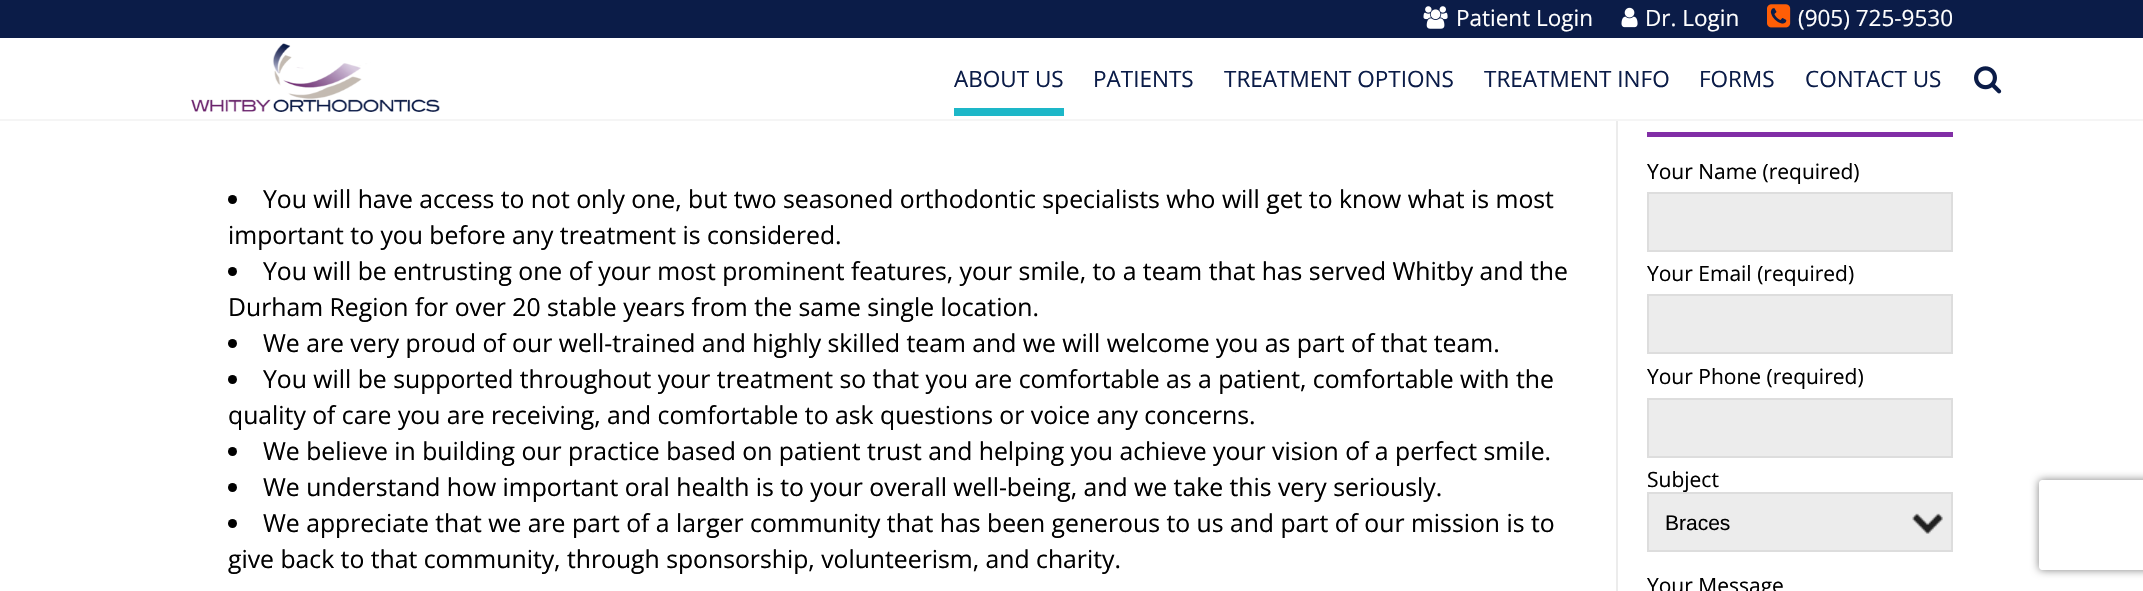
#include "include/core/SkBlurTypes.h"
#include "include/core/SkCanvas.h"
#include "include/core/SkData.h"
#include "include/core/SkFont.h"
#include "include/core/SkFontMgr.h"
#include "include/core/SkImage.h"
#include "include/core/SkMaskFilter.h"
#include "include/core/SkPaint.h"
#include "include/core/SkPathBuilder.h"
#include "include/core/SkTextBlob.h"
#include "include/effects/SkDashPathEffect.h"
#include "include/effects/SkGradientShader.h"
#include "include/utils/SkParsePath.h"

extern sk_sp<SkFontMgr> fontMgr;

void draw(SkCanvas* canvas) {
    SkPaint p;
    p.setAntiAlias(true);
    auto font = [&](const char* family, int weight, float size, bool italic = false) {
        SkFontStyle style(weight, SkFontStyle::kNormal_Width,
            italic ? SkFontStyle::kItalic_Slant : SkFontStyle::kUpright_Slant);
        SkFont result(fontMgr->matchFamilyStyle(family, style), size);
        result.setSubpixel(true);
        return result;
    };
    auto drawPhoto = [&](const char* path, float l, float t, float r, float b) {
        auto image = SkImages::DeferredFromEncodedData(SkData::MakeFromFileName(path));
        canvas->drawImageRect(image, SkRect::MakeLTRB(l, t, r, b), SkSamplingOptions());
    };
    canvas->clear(0xFFFFFFFF);
    p.setColor(0xFFF5F5F5);
    canvas->drawRect(SkRect::MakeLTRB(0, 119, 2143, 121), p);
    p.setColor(0xFF0B1C48);
    canvas->drawRect(SkRect::MakeLTRB(0, 0, 2143, 38), p);
    drawPhoto("media/1.png", 1423, 6, 1448, 29);
    auto font1 = font("Open Sans", 400, 22.5f);
    p.setColor(0xFFFFFFFF);
    canvas->drawString("Patient Login", 1456, 26, font1, p);
    drawPhoto("media/2.png", 1621, 7, 1638, 28);
    canvas->drawString("Dr. Login", 1645, 26, font1, p);
    drawPhoto("media/3.png", 1767, 4, 1791, 28);
    canvas->drawString("(905) 725-9530", 1798, 26, font1, p);
    drawPhoto("media/4.png", 191, 43, 440, 112);
    p.setColor(0xFF0B1C48);
    canvas->drawString("ABOUT US", 954, 87, font1, p);
    p.setColor(0xFF1DB7C8);
    canvas->drawRect(SkRect::MakeLTRB(954, 108, 1064, 116), p);
    p.setColor(0xFF0B1C48);
    {
        const struct { const char* s; float x, y; } items[] = {
            {"PATIENTS", 1093, 87},
            {"TREATMENT OPTIONS", 1224, 87},
            {"TREATMENT INFO", 1484, 87},
            {"FORMS", 1699, 87},
            {"CONTACT US", 1805, 87},
        };
        for (auto [s, x, y] : items) {
            canvas->drawString(s, x, y, font1, p);
        }
    }
    drawPhoto("media/5.png", 1974, 66, 2002, 94);
    p.setColor(0xFF000000);
    canvas->drawCircle(232.5f, 199.5f, 4.5f, p);
    auto font2 = font("Open Sans", 400, 24.75f);
    canvas->drawString("You will have access to not only one, but two seasoned orthodontic specialists who will get to know what is most", 263, 208, font2, p);
    canvas->drawString("important to you before any treatment is considered.", 228, 244, font2, p);
    canvas->drawCircle(232.5f, 271.5f, 4.5f, p);
    canvas->drawString("You will be entrusting one of your most prominent features, your smile, to a team that has served Whitby and the", 263, 280, font2, p);
    canvas->drawString("Durham Region for over 20 stable years from the same single location.", 228, 316, font2, p);
    canvas->drawCircle(232.5f, 343.5f, 4.5f, p);
    canvas->drawString("We are very proud of our well-trained and highly skilled team and we will welcome you as part of that team.", 263, 352, font2, p);
    canvas->drawCircle(232.5f, 379.5f, 4.5f, p);
    canvas->drawString("You will be supported throughout your treatment so that you are comfortable as a patient, comfortable with the", 263, 388, font2, p);
    canvas->drawString("quality of care you are receiving, and comfortable to ask questions or voice any concerns.", 228, 424, font2, p);
    canvas->drawCircle(232.5f, 451.5f, 4.5f, p);
    canvas->drawString("We believe in building our practice based on patient trust and helping you achieve your vision of a perfect smile.", 263, 460, font2, p);
    canvas->drawCircle(232.5f, 487.5f, 4.5f, p);
    canvas->drawString("We understand how important oral health is to your overall well-being, and we take this very seriously.", 263, 496, font2, p);
    canvas->drawCircle(232.5f, 523.5f, 4.5f, p);
    canvas->drawString("We appreciate that we are part of a larger community that has been generous to us and part of our mission is to", 263, 532, font2, p);
    canvas->drawString("give back to that community, through sponsorship, volunteerism, and charity.", 228, 568, font2, p);
    p.setColor(0xFFECECEC);
    canvas->drawRect(SkRect::MakeLTRB(1616, 121, 1618, 591), p);
    p.setColor(0xFF812EA6);
    canvas->drawRect(SkRect::MakeLTRB(1647, 132, 1953, 137), p);
    auto font3 = font("Open Sans", 400, 21);
    p.setColor(0xFF000000);
    canvas->drawString("Your Name (required)", 1647, 179, font3, p);
    p.setColor(0xFFECECEC);
    canvas->drawRect(SkRect::MakeLTRB(1648, 193, 1952, 251), p);
    p.setStyle(SkPaint::kStroke_Style);
    p.setStrokeWidth(2);
    p.setColor(0xFFDDDDDD);
    canvas->drawRect(SkRect::MakeLTRB(1648, 193, 1952, 251), p);
    p.setStyle(SkPaint::kFill_Style);
    p.setColor(0xFF000000);
    canvas->drawString("Your Email (required)", 1647, 281, font3, p);
    p.setColor(0xFFECECEC);
    canvas->drawRect(SkRect::MakeLTRB(1648, 295, 1952, 353), p);
    p.setStyle(SkPaint::kStroke_Style);
    p.setColor(0xFFDDDDDD);
    canvas->drawRect(SkRect::MakeLTRB(1648, 295, 1952, 353), p);
    p.setStyle(SkPaint::kFill_Style);
    p.setColor(0xFF000000);
    canvas->drawString("Your Phone (required)", 1647, 384, font3, p);
    p.setColor(0xFFECECEC);
    canvas->drawRect(SkRect::MakeLTRB(1648, 399, 1952, 457), p);
    p.setStyle(SkPaint::kStroke_Style);
    p.setColor(0xFFDDDDDD);
    canvas->drawRect(SkRect::MakeLTRB(1648, 399, 1952, 457), p);
    p.setStyle(SkPaint::kFill_Style);
    p.setColor(0xFF000000);
    canvas->drawString("Subject", 1647, 487, font3, p);
    p.setColor(0xFFECECEC);
    canvas->drawRect(SkRect::MakeLTRB(1649, 494, 1951, 550), p);
    drawPhoto("media/6.png", 1912, 513, 1943, 534);
    p.setStyle(SkPaint::kStroke_Style);
    p.setColor(0xFFDDDDDD);
    canvas->drawRect(SkRect::MakeLTRB(1648, 493, 1952, 551), p);
    auto font4 = font("Liberation Sans", 400, 21);
    p.setStyle(SkPaint::kFill_Style);
    p.setColor(0xFF000000);
    canvas->drawString("Braces", 1665, 530, font4, p);
    canvas->drawString("Your Message", 1647, 593, font3, p);
    canvas->save();
    canvas->clipPath(SkPathBuilder(SkPathFillType::kEvenOdd).moveTo(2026, 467).lineTo(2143, 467).lineTo(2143, 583).lineTo(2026, 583).close().moveTo(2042, 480).lineTo(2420, 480).cubicTo(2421.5f, 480, 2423, 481.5f, 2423, 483).lineTo(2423, 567).cubicTo(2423, 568.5f, 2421.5f, 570, 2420, 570).lineTo(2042, 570).cubicTo(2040.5f, 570, 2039, 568.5f, 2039, 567).lineTo(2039, 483).cubicTo(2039, 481.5f, 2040.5f, 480, 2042, 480).close().detach(), true);
    p.setColor(0xFF808080);
    p.setMaskFilter(SkMaskFilter::MakeBlur(kNormal_SkBlurStyle, 4));
    canvas->drawRoundRect(SkRect::MakeLTRB(2039, 480, 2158, 570), 3, 3, p);
    p.setMaskFilter(nullptr);
    canvas->restore();
}
